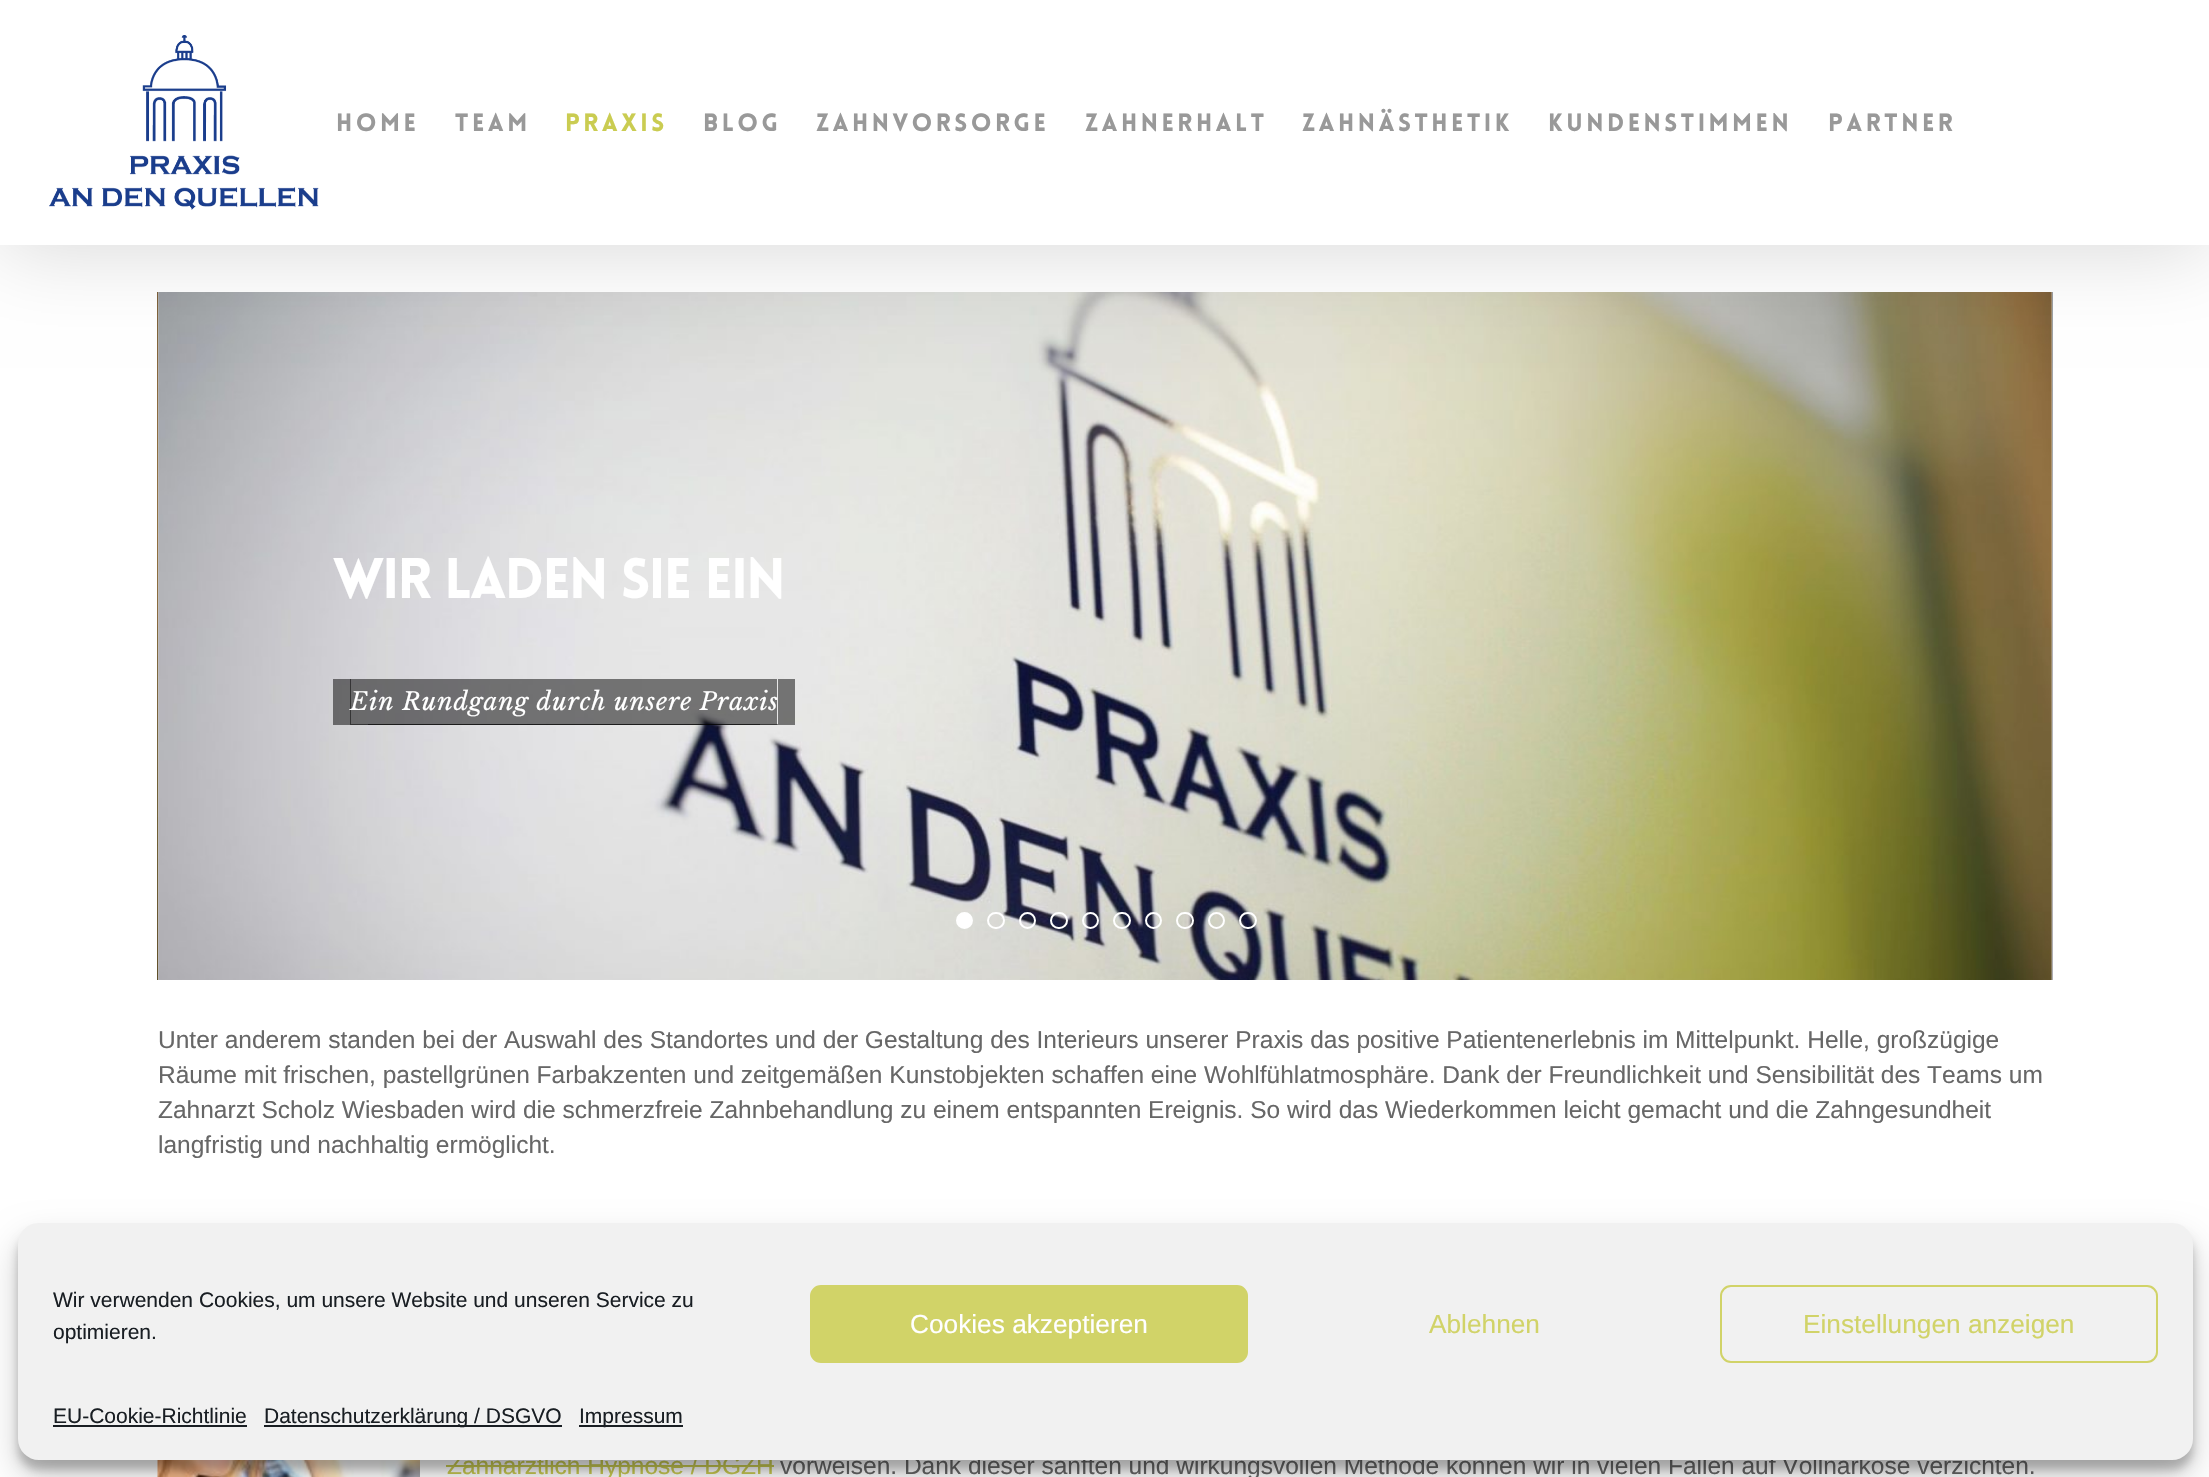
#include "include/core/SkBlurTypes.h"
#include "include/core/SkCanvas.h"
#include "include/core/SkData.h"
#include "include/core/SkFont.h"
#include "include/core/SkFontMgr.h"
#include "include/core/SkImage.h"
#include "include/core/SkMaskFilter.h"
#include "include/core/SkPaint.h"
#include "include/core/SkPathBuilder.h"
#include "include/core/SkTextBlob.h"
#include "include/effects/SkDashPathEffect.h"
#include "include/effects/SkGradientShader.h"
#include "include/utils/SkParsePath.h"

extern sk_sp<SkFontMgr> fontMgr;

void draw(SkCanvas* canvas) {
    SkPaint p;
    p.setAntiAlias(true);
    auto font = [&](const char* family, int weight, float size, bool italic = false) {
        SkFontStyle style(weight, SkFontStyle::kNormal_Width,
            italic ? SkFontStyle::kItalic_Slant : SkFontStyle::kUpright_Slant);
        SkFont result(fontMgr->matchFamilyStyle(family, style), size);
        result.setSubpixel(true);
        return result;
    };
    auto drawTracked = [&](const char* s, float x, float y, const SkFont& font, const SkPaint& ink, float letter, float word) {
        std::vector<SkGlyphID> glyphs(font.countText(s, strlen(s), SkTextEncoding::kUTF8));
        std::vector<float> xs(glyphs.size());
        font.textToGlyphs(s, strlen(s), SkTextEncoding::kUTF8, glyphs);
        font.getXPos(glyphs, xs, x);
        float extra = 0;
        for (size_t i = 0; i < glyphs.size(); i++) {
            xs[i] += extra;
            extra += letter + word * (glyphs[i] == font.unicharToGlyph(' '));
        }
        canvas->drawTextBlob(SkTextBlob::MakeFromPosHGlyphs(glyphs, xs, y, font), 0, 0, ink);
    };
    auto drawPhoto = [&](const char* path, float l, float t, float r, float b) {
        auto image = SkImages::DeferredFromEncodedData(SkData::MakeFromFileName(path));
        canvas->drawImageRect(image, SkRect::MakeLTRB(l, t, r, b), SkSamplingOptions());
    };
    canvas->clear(0xFFFFFFFF);
    drawPhoto("media/2.png", 157, 292, 159, 980);
    drawPhoto("media/3.png", 158, 292, 2052, 980);
    drawPhoto("media/4.png", 2052, 292, 2053, 980);
    p.setColor(0x26000000);
    p.setMaskFilter(SkMaskFilter::MakeBlur(kNormal_SkBlurStyle, 39.5f));
    canvas->drawRect(SkRect::MakeLTRB(0, 5, 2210, 250), p);
    p.setMaskFilter(nullptr);
    p.setColor(0xFFFFFFFF);
    canvas->drawRect(SkRect::MakeLTRB(0, 0, 2209, 245), p);
    drawPhoto("media/1.png", 49, 35, 319, 210);
    auto font1 = font("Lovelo", 900, 24.5f);
    p.setColor(0xFF999999);
    drawTracked("Home", 336, 131, font1, p, 3.5f, 0);
    drawTracked("Team", 455, 131, font1, p, 3.5f, 0);
    p.setColor(0xFFCACC51);
    drawTracked("Praxis", 565, 131, font1, p, 3.5f, 0);
    p.setColor(0xFF999999);
    {
        const struct { const char* s; float x, y; } items[] = {
            {"Blog", 703, 131},
            {"Zahnvorsorge", 816, 131},
            {"Zahnerhalt", 1085, 131},
            {"Zahnästhetik", 1302, 131},
            {"Kundenstimmen", 1548, 131},
            {"Partner", 1828, 131},
        };
        for (auto [s, x, y] : items) {
            drawTracked(s, x, y, font1, p, 3.5f, 0);
        }
    }
    auto font2 = font("Lovelo", 900, 56);
    p.setColor(0xFFFFFFFF);
    drawTracked("Wir laden Sie ein", 333, 598, font2, p, -1.75f, 0);
    p.setColor(0x80000000);
    canvas->drawPath(SkPathBuilder().moveTo(333, 679).lineTo(333, 725).lineTo(760, 725).lineTo(760, 724).lineTo(351, 724).lineTo(351, 679).close().detach(), p);
    canvas->drawPath(SkPathBuilder().moveTo(368, 724).lineTo(368, 725).lineTo(795, 725).lineTo(795, 679).lineTo(778, 679).lineTo(778, 724).close().detach(), p);
    canvas->drawRect(SkRect::MakeLTRB(350, 679, 777, 725), p);
    auto font3 = font("Libre Baskerville", 400, 24.5f, true);
    p.setColor(0xFFFFFFFF);
    drawTracked("Ein Rundgang durch unsere Praxis", 350, 710, font3, p, 0.9f, 0);
    canvas->drawCircle(964.5f, 920.5f, 7.5f, p);
    p.setStyle(SkPaint::kStroke_Style);
    p.setStrokeWidth(2);
    canvas->drawCircle(964.5f, 920.5f, 7.5f, p);
    canvas->drawRoundRect(SkRect::MakeLTRB(988, 913, 1004, 928), 7.5f, 7.5f, p);
    canvas->drawCircle(1027.5f, 920.5f, 7.5f, p);
    canvas->drawRoundRect(SkRect::MakeLTRB(1051, 913, 1067, 928), 7.5f, 7.5f, p);
    canvas->drawCircle(1090.5f, 920.5f, 7.5f, p);
    canvas->drawRoundRect(SkRect::MakeLTRB(1114, 913, 1130, 928), 7.5f, 7.5f, p);
    canvas->drawCircle(1153.5f, 920.5f, 7.5f, p);
    canvas->drawRoundRect(SkRect::MakeLTRB(1177, 913, 1193, 928), 7.5f, 7.5f, p);
    canvas->drawCircle(1216.5f, 920.5f, 7.5f, p);
    canvas->drawRoundRect(SkRect::MakeLTRB(1240, 913, 1256, 928), 7.5f, 7.5f, p);
    auto font4 = font("Liberation Sans", 400, 24.5f);
    p.setStyle(SkPaint::kFill_Style);
    p.setColor(0xFF676767);
    {
        const struct { const char* s; float x, y; } items[] = {
            {"Unter anderem standen bei der Auswahl des Standortes und der Gestaltung des Interieurs unserer Praxis das positive Patientenerlebnis im Mittelpunkt. Helle, großzügige", 158, 1048},
            {"Räume mit frischen, pastellgrünen Farbakzenten und zeitgemäßen Kunstobjekten schaffen eine Wohlfühlatmosphäre. Dank der Freundlichkeit und Sensibilität des Teams um", 158, 1083},
            {"Zahnarzt Scholz Wiesbaden wird die schmerzfreie Zahnbehandlung zu einem entspannten Ereignis. So wird das Wiederkommen leicht gemacht und die Zahngesundheit", 158, 1118},
            {"langfristig und nachhaltig ermöglicht.", 158, 1153},
        };
        for (auto [s, x, y] : items) {
            canvas->drawString(s, x, y, font4, p);
        }
    }
    drawPhoto("media/5.png", 157, 1460, 420, 1477);
    p.setColor(0xFFCACC51);
    canvas->drawString("Zahnärztlich Hypnose / DGZH", 447, 1474, font4, p);
    canvas->drawRect(SkRect::MakeLTRB(446, 1465, 774, 1467), p);
    p.setColor(0xFF676767);
    canvas->drawString("vorweisen. Dank dieser sanften und wirkungsvollen Methode können wir in vielen Fällen auf Vollnarkose verzichten.", 780, 1474, font4, p);
    p.setColor(0x3B000000);
    p.setMaskFilter(SkMaskFilter::MakeBlur(kNormal_SkBlurStyle, 5));
    canvas->drawRoundRect(SkRect::MakeLTRB(18, 1234, 2193, 1470), 21, 21, p);
    p.setMaskFilter(nullptr);
    p.setColor(0x30000000);
    p.setMaskFilter(SkMaskFilter::MakeBlur(kNormal_SkBlurStyle, 17.5f));
    canvas->drawRoundRect(SkRect::MakeLTRB(18, 1241, 2193, 1477), 21, 21, p);
    p.setMaskFilter(nullptr);
    p.setColor(0xFFF1F1F1);
    canvas->drawRoundRect(SkRect::MakeLTRB(18, 1223, 2193, 1460), 21, 21, p);
    auto font5 = font("Liberation Sans", 400, 21);
    p.setColor(0xFF191E23);
    canvas->drawString("Wir verwenden Cookies, um unsere Website und unseren Service zu", 53, 1307, font5, p);
    canvas->drawString("optimieren.", 53, 1339, font5, p);
    p.setColor(0xFFD1D368);
    canvas->drawRoundRect(SkRect::MakeLTRB(811, 1286, 1247, 1362), 10, 10, p);
    p.setStyle(SkPaint::kStroke_Style);
    canvas->drawRoundRect(SkRect::MakeLTRB(811, 1286, 1247, 1362), 10, 10, p);
    auto font6 = font("Liberation Sans", 400, 26.25f);
    p.setStyle(SkPaint::kFill_Style);
    p.setColor(0xFFFFFFFF);
    canvas->drawString("Cookies akzeptieren", 910, 1333, font6, p);
    p.setColor(0xFFD1D368);
    canvas->drawString("Ablehnen", 1429, 1333, font6, p);
    p.setStyle(SkPaint::kStroke_Style);
    canvas->drawRoundRect(SkRect::MakeLTRB(1721, 1286, 2157, 1362), 10, 10, p);
    p.setStyle(SkPaint::kFill_Style);
    canvas->drawString("Einstellungen anzeigen", 1803, 1333, font6, p);
    p.setColor(0xFF191E23);
    canvas->drawString("EU-Cookie-Richtlinie", 53, 1423, font5, p);
    canvas->drawRect(SkRect::MakeLTRB(53, 1425, 247, 1427), p);
    canvas->drawRect(SkRect::MakeLTRB(264, 1425, 562, 1427), p);
    canvas->drawString("Datenschutzerklärung / DSGVO", 264, 1423, font5, p);
    canvas->drawRect(SkRect::MakeLTRB(579, 1425, 683, 1427), p);
    canvas->drawString("Impressum", 579, 1423, font5, p);
}
